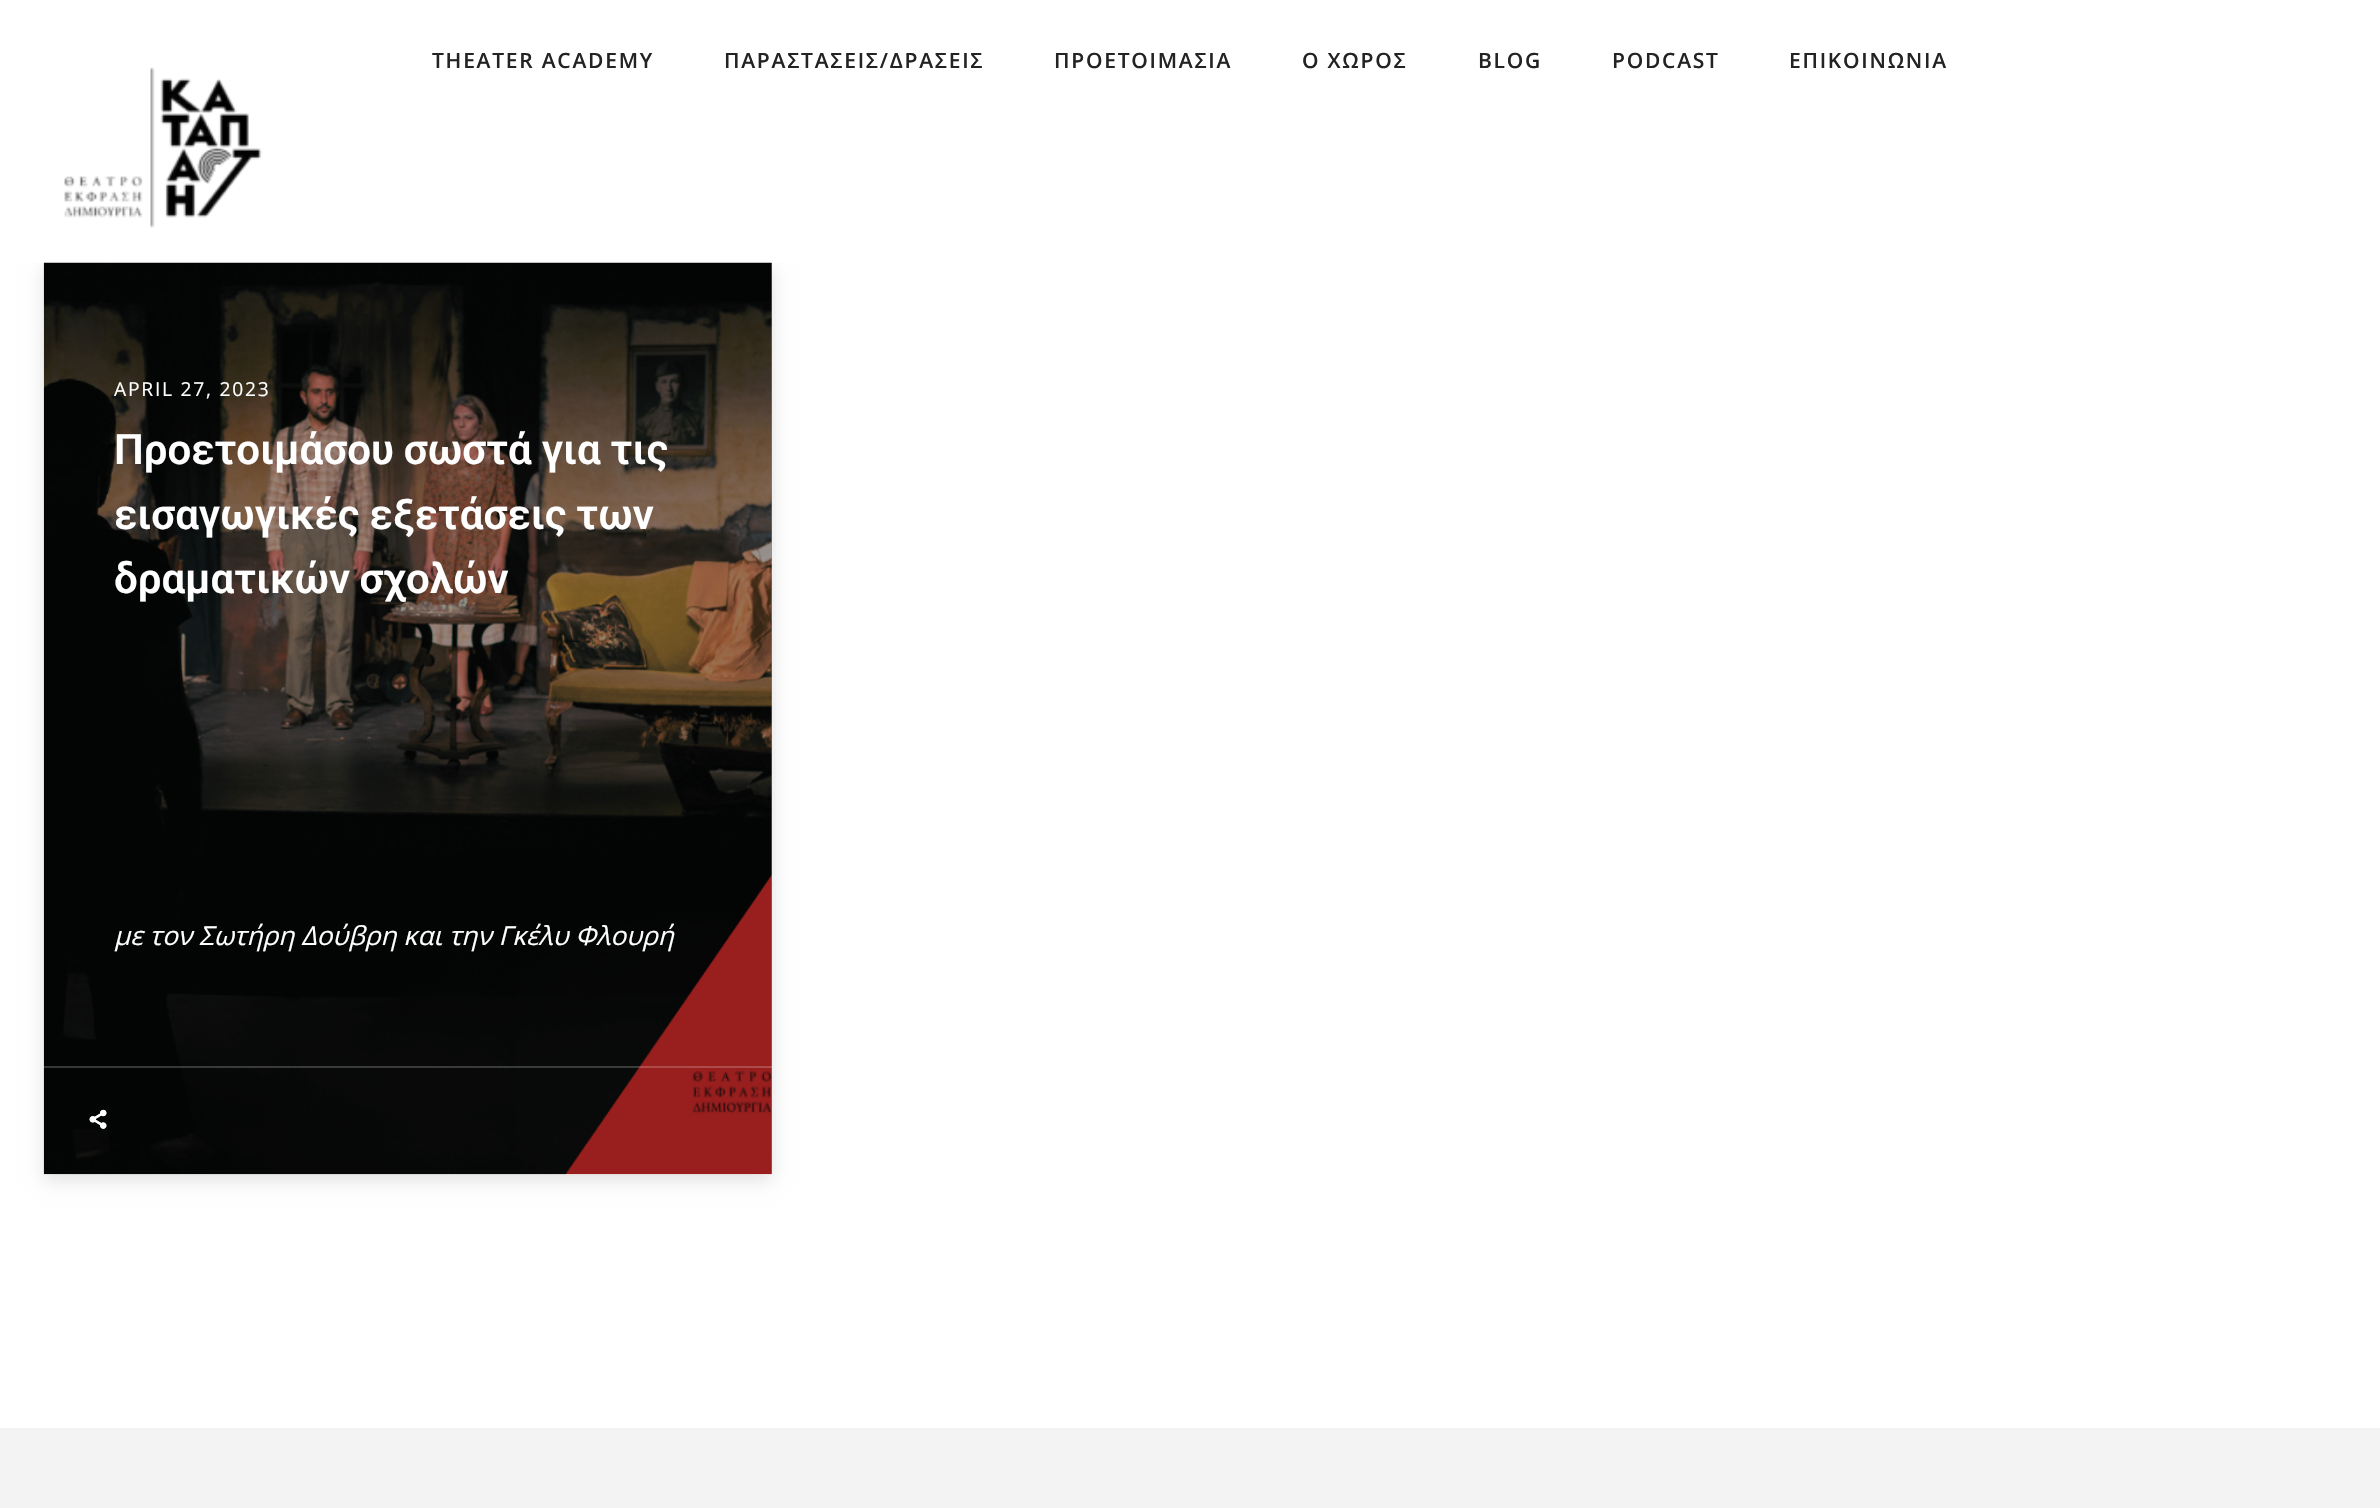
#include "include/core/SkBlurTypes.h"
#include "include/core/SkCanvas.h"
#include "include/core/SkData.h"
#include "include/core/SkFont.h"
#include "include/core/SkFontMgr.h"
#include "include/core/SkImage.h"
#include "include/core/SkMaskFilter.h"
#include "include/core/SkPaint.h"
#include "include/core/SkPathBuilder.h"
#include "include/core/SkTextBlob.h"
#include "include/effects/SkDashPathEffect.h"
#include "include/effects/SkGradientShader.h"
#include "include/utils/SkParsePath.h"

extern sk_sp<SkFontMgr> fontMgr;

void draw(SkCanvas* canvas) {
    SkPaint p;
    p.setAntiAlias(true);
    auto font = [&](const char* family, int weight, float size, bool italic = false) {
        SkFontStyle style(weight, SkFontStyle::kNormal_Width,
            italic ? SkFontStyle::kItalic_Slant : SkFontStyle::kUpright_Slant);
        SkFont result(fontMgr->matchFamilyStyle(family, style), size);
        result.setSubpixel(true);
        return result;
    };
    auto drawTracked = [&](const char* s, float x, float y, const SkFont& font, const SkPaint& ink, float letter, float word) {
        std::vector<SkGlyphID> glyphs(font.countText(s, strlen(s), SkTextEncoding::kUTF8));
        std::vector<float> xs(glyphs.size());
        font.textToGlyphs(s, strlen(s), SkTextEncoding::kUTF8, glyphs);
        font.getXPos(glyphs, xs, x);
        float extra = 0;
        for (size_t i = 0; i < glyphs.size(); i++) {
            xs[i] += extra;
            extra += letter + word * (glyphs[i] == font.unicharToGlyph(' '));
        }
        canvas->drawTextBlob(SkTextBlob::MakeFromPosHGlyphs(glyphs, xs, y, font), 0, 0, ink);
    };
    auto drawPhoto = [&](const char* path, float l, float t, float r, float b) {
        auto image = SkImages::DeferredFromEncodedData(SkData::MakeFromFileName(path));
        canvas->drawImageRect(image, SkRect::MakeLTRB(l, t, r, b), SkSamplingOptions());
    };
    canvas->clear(0xFFFFFFFF);
    auto font1 = font("Open Sans", 600, 21);
    p.setColor(0xFF232323);
    {
        const struct { const char* s; float x, y; } items[] = {
            {"THEATER ACADEMY", 432, 68},
            {"ΠΑΡΑΣΤΑΣΕΙΣ/ΔΡΑΣΕΙΣ", 724, 68},
            {"ΠΡΟΕΤΟΙΜΑΣΙΑ", 1054, 68},
            {"Ο ΧΩΡΟΣ", 1302, 68},
            {"BLOG", 1478, 68},
            {"PODCAST", 1612, 68},
            {"ΕΠΙΚΟΙΝΩΝΙΑ", 1789, 68},
        };
        for (auto [s, x, y] : items) {
            drawTracked(s, x, y, font1, p, 1.75f, 0);
        }
    }
    drawPhoto("media/1.png", 64, 67, 262, 228);
    canvas->save();
    canvas->clipRect(SkRect::MakeLTRB(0, 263, 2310, 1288));
    p.setColor(0x1F000000);
    p.setMaskFilter(SkMaskFilter::MakeBlur(kNormal_SkBlurStyle, 9));
    canvas->drawRect(SkRect::MakeLTRB(44, 268, 772, 1180), p);
    p.setMaskFilter(nullptr);
    canvas->restore();
    drawPhoto("media/2.png", 43, 262, 772, 1175);
    p.setColor(0x66000000);
    canvas->drawRect(SkRect::MakeLTRB(44, 263, 772, 1174), p);
    auto font2 = font("Open Sans", 400, 19.25f);
    p.setColor(0xFFFFFFFF);
    drawTracked("APRIL 27, 2023", 114, 396, font2, p, 1.75f, 0);
    auto font3 = font("Roboto", 600, 42);
    drawTracked("Προετοιμάσου σωστά για τις", 114, 464, font3, p, 0, -0.5f);
    drawTracked("εισαγωγικές εξετάσεις των", 114, 529, font3, p, 0, -0.5f);
    drawTracked("δραματικών σχολών", 114, 593, font3, p, 0, -1);
    auto font4 = font("Open Sans", 400, 26.25f, true);
    canvas->drawString("με τον Σωτήρη Δούβρη και την Γκέλυ Φλουρή", 114, 945, font4, p);
    p.setColor(0x33FFFFFF);
    canvas->drawRect(SkRect::MakeLTRB(44, 1066, 772, 1068), p);
    drawPhoto("media/3.png", 89, 1109, 107, 1129);
    drawPhoto("media/4.png", 89, 1109, 107, 1129);
    p.setColor(0xFFF3F3F3);
    canvas->drawRect(SkRect::MakeLTRB(0, 1428, 2380, 1508), p);
}
